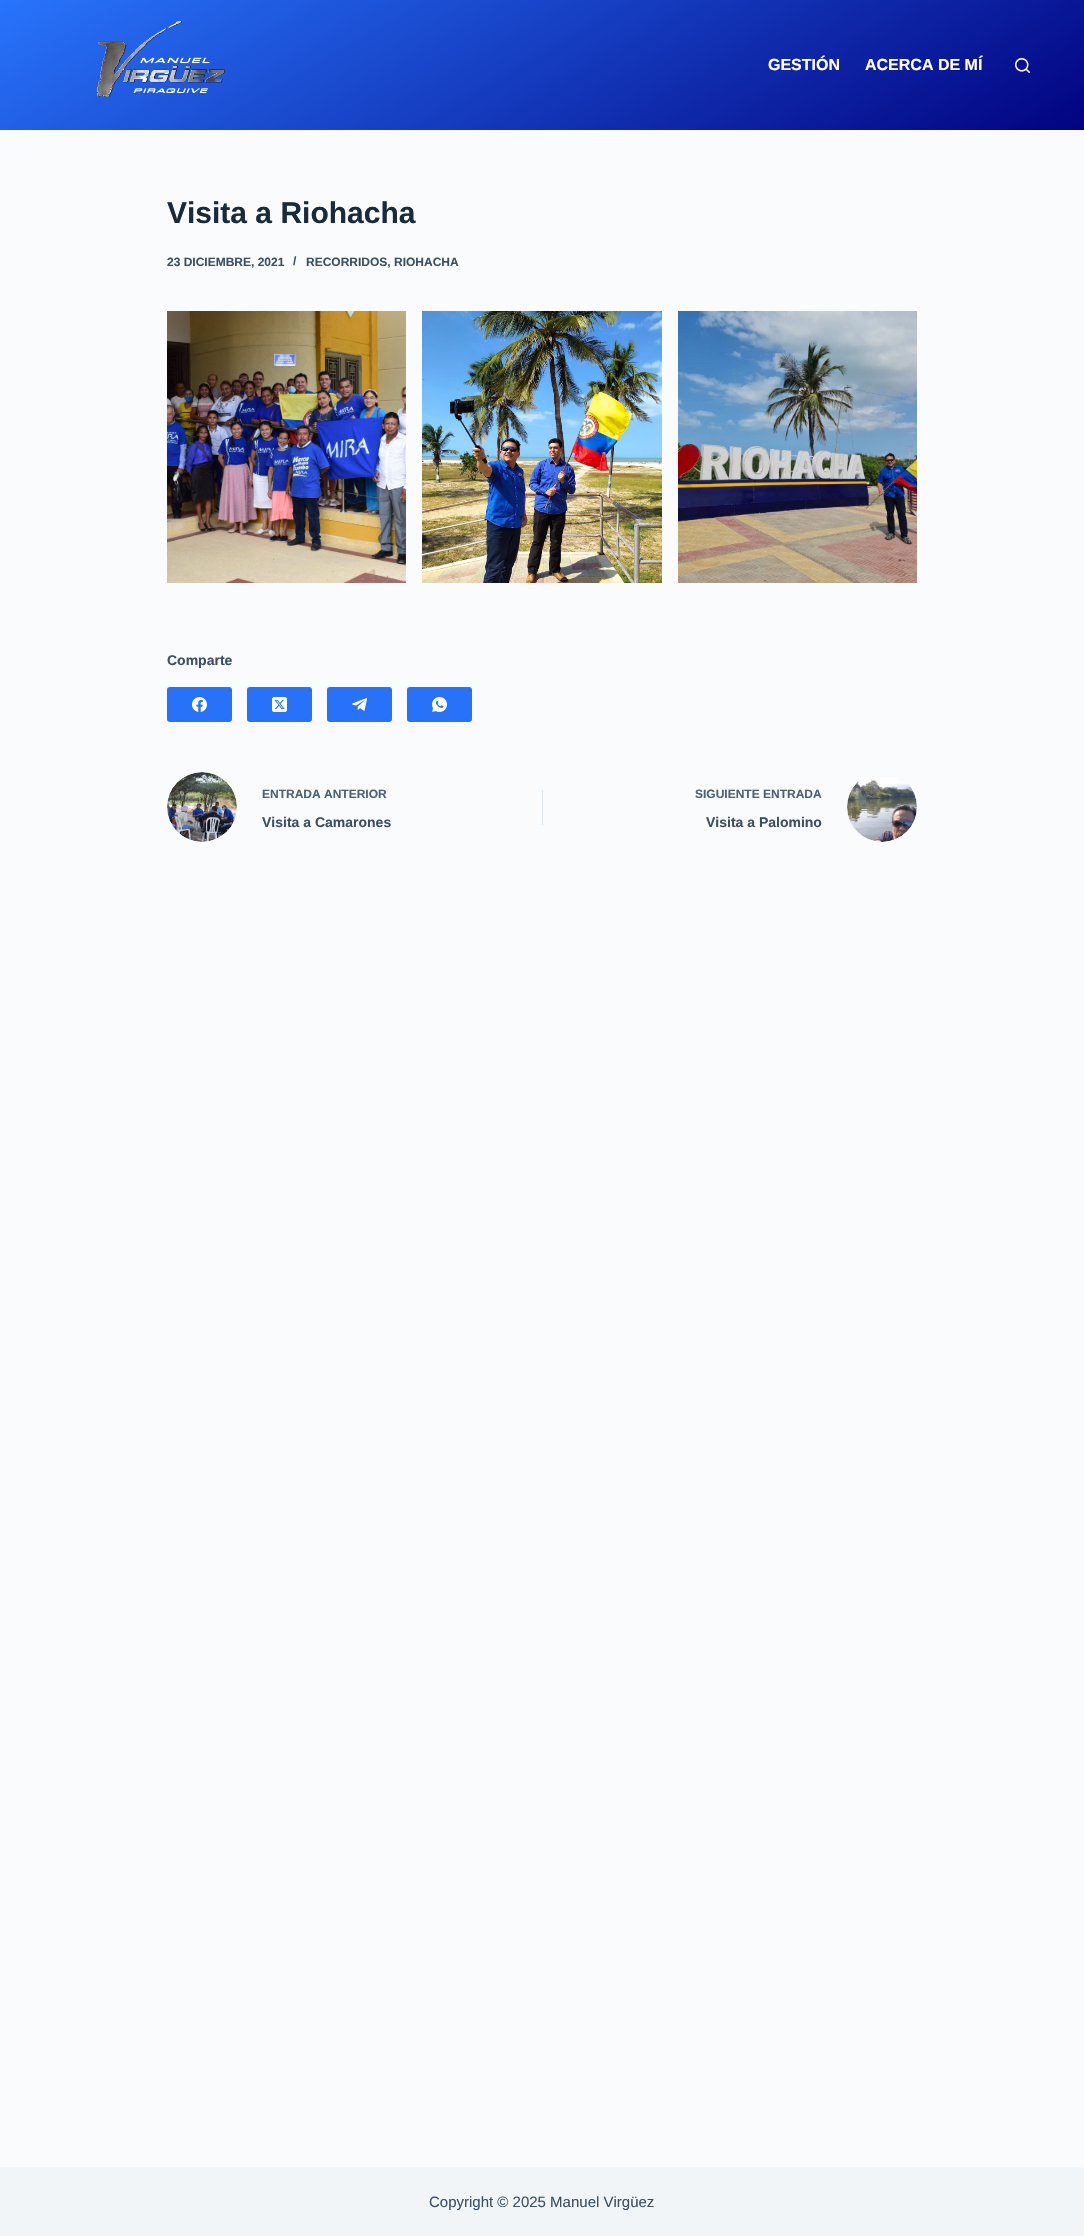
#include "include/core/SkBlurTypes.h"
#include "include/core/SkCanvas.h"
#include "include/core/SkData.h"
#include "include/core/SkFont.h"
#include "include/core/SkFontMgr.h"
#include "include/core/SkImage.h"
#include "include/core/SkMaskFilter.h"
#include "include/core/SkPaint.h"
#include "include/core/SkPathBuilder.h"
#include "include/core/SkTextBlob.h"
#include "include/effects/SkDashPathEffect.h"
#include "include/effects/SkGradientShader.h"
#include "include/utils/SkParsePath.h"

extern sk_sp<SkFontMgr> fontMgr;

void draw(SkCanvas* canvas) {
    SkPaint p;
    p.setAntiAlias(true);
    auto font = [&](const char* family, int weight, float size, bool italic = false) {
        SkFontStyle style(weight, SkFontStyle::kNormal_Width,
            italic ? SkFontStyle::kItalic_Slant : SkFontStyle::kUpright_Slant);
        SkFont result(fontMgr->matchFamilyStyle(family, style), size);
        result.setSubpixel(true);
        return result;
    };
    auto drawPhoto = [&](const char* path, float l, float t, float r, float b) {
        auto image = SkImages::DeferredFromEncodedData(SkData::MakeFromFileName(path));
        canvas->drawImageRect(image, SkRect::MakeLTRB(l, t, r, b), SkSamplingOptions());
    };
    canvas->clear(0xFFFAFBFC);
    {
        const SkColor colors[] = {0xFF020381, 0xFF2874FC};
        const float stops[] = {0, 1};
        const SkPoint ends[] = {{706, 348}, {378, -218}};
        p.setShader(SkGradientShader::MakeLinear(ends, colors, stops, 2, SkTileMode::kClamp));
        p.setAlpha(255);
    }
    canvas->drawRect(SkRect::MakeLTRB(0, 0, 1084, 130), p);
    drawPhoto("media/1.png", 96, 21, 226, 97);
    auto font1 = font("Liberation Sans", 700, 16);
    p.setShader(nullptr);
    p.setColor(0xFFFFFEFE);
    canvas->drawString("GESTIÓN", 768, 70, font1, p);
    canvas->drawString("ACERCA DE MÍ", 865, 70, font1, p);
    drawPhoto("media/2.png", 1015, 58, 1030, 73);
    auto font2 = font("Liberation Sans", 700, 30);
    p.setColor(0xFF192A3D);
    canvas->drawString("Visita a Riohacha", 167, 223, font2, p);
    auto font3 = font("Liberation Sans", 700, 12);
    p.setColor(0xFF3A4F66);
    {
        const struct { const char* s; float x, y; } items[] = {
            {"23 DICIEMBRE, 2021", 167, 266},
            {"/", 293, 265},
            {"RECORRIDOS, RIOHACHA", 306, 266},
        };
        for (auto [s, x, y] : items) {
            canvas->drawString(s, x, y, font3, p);
        }
    }
    drawPhoto("media/3.png", 167, 311, 406, 583);
    drawPhoto("media/4.png", 422, 311, 662, 583);
    drawPhoto("media/5.png", 678, 311, 917, 583);
    auto font4 = font("Liberation Sans", 700, 14);
    canvas->drawString("Comparte", 167, 665, font4, p);
    p.setColor(0xFF2872FA);
    canvas->drawRoundRect(SkRect::MakeLTRB(167, 687, 232, 722), 3, 3, p);
    drawPhoto("media/6.png", 192, 697, 207, 712);
    canvas->drawRoundRect(SkRect::MakeLTRB(247, 687, 312, 722), 3, 3, p);
    drawPhoto("media/7.png", 272, 697, 287, 712);
    canvas->drawRoundRect(SkRect::MakeLTRB(327, 687, 392, 722), 3, 3, p);
    drawPhoto("media/8.png", 352, 698, 367, 711);
    canvas->drawRoundRect(SkRect::MakeLTRB(407, 687, 472, 722), 3, 3, p);
    drawPhoto("media/9.png", 432, 697, 447, 712);
    drawPhoto("media/10.png", 167, 772, 237, 842);
    p.setColor(0xFF4D6075);
    canvas->drawString("ENTRADA ANTERIOR", 262, 798, font3, p);
    p.setColor(0xFF3A4F66);
    canvas->drawString("Visita a Camarones", 262, 827, font4, p);
    p.setColor(0xFFE1E8ED);
    canvas->drawRect(SkRect::MakeLTRB(542, 790, 543, 825), p);
    p.setColor(0xFF4D6075);
    canvas->drawString("SIGUIENTE ENTRADA", 695, 798, font3, p);
    p.setColor(0xFF3A4F66);
    canvas->drawString("Visita a Palomino", 706, 827, font4, p);
    drawPhoto("media/11.png", 847, 777, 917, 842);
    p.setColor(0xFFF2F5F7);
    canvas->drawRect(SkRect::MakeLTRB(0, 2167, 1084, 2236), p);
    auto font5 = font("Liberation Sans", 400, 15);
    p.setColor(0xFF3A4F66);
    canvas->drawString("Copyright © 2025 Manuel Virgüez", 429, 2207, font5, p);
}
